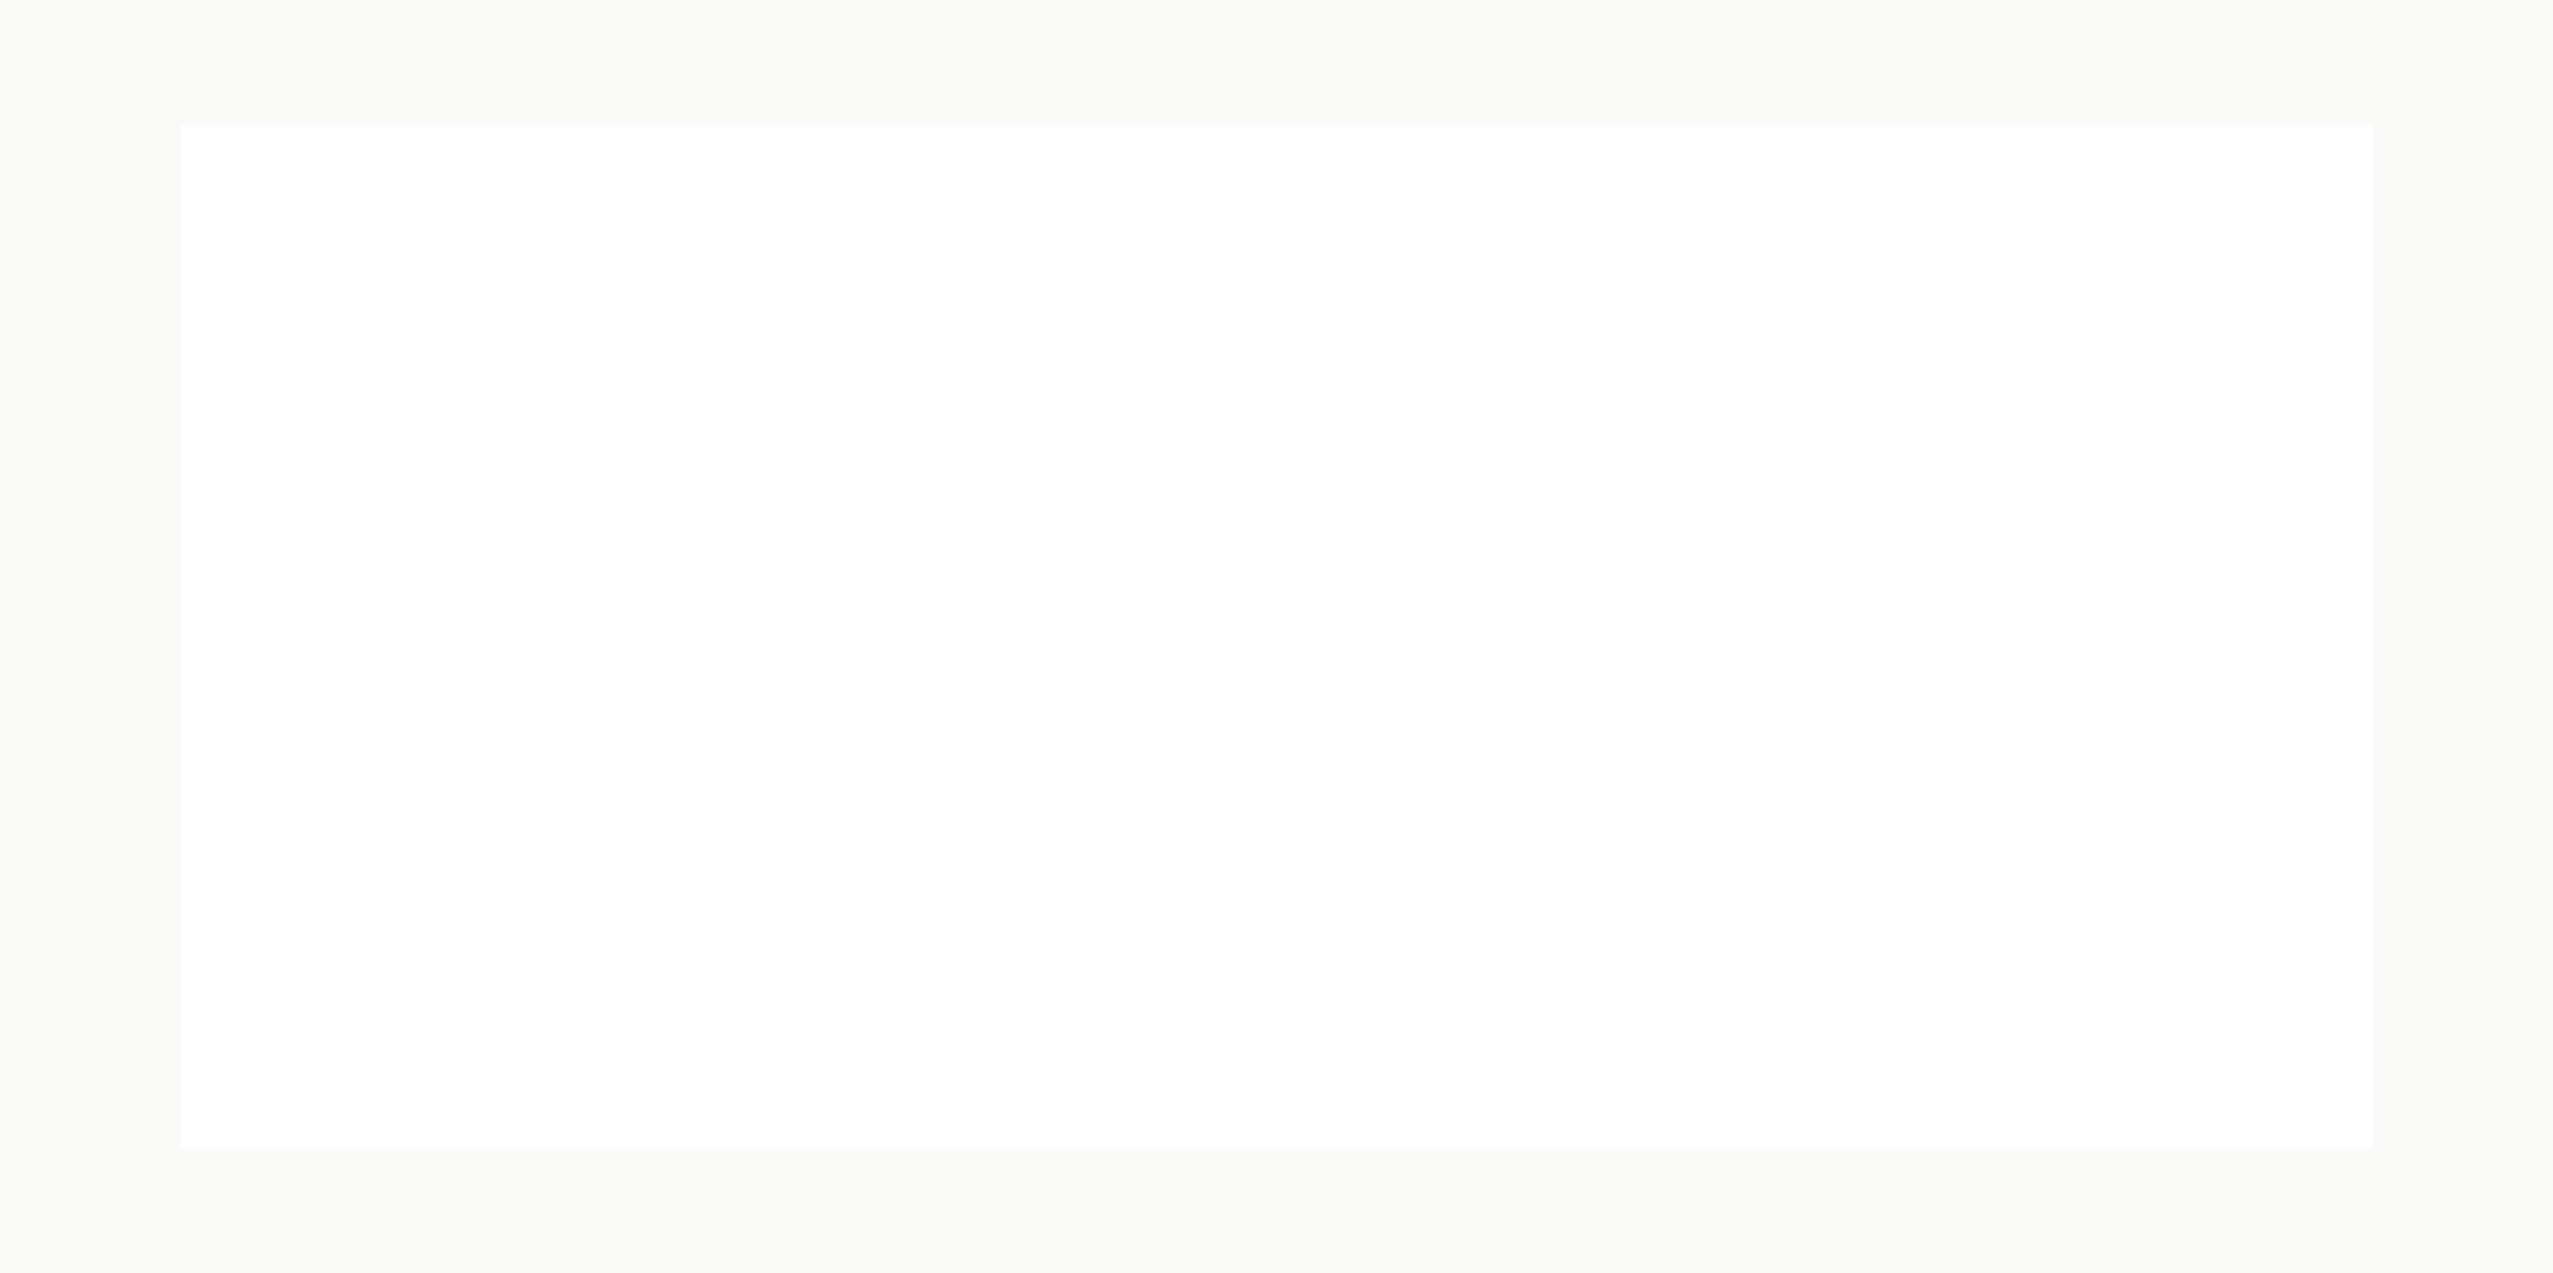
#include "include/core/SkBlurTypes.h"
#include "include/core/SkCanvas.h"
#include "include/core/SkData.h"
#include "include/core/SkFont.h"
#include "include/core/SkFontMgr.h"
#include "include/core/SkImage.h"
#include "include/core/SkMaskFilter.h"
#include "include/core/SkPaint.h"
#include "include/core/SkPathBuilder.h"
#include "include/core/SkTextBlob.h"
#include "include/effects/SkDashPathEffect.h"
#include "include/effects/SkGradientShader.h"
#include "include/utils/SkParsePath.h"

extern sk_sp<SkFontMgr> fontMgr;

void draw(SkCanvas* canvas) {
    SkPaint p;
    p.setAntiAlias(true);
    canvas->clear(0xFFFAFAF8);
    p.setColor(0xFFFEFEFE);
    canvas->drawRect(SkRect::MakeLTRB(181, 125, 2373, 1149), p);
}
